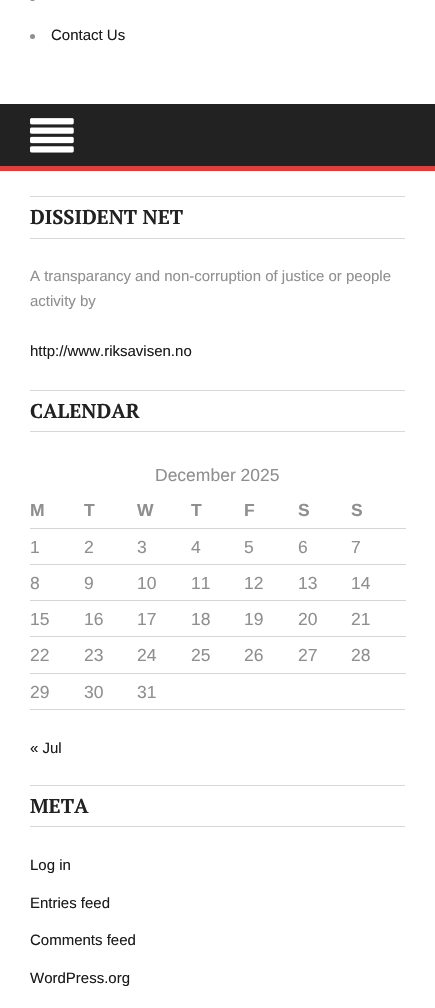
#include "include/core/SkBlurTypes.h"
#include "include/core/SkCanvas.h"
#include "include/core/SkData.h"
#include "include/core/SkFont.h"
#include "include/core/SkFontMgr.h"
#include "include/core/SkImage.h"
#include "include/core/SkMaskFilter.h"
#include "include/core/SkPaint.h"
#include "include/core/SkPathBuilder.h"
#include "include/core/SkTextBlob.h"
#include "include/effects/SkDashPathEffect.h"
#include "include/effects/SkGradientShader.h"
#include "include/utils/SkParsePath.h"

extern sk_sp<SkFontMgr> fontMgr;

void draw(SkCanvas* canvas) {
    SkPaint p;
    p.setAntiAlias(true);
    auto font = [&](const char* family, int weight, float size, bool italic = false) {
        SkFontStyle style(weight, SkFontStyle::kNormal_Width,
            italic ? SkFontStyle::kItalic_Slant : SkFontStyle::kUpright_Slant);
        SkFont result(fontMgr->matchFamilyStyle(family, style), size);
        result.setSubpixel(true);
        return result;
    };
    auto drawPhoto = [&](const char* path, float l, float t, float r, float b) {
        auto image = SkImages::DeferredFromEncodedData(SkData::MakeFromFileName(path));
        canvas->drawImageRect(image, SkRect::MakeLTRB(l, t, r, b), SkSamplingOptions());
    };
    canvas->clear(0xFFFFFFFF);
    p.setColor(0xFF8F8F8F);
    canvas->drawRoundRect(SkRect::MakeLTRB(30, -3, 35, 1), 2.5f, 2.5f, p);
    canvas->drawCircle(32.5f, 36.5f, 2.5f, p);
    auto font1 = font("Liberation Sans", 400, 15);
    p.setColor(0xFF1B1B1B);
    canvas->drawString("Contact Us", 51, 40, font1, p);
    p.setColor(0xFF222222);
    canvas->drawRect(SkRect::MakeLTRB(0, 104, 435, 166), p);
    p.setColor(0xFFE03D3D);
    canvas->drawRect(SkRect::MakeLTRB(0, 166, 435, 171), p);
    drawPhoto("media/1.png", 30, 118, 74, 153);
    p.setColor(0xFFD8D8D8);
    canvas->drawRect(SkRect::MakeLTRB(30, 196, 405, 197), p);
    canvas->drawRect(SkRect::MakeLTRB(30, 238, 405, 239), p);
    auto font2 = font("PT Serif", 700, 20);
    p.setColor(0xFF222222);
    canvas->drawString("DISSIDENT NET", 30, 224, font2, p);
    p.setColor(0xFF8F8F8F);
    canvas->drawString("A transparancy and non-corruption of justice or people", 30, 281, font1, p);
    canvas->drawString("activity by", 30, 306, font1, p);
    p.setColor(0xFF1B1B1B);
    canvas->drawString("http://www.riksavisen.no", 30, 356, font1, p);
    p.setColor(0xFFD8D8D8);
    canvas->drawRect(SkRect::MakeLTRB(30, 390, 405, 391), p);
    canvas->drawRect(SkRect::MakeLTRB(30, 431, 405, 432), p);
    p.setColor(0xFF222222);
    canvas->drawString("CALENDAR", 30, 418, font2, p);
    p.setColor(0xFFD6D6D6);
    canvas->drawRect(SkRect::MakeLTRB(30, 709, 405, 710), p);
    auto font3 = font("Liberation Sans", 400, 17.5f);
    p.setColor(0xFF8F8F8F);
    canvas->drawString("December 2025", 155, 481, font3, p);
    auto font4 = font("Liberation Sans", 700, 17.5f);
    {
        const struct { const char* s; float x, y; } items[] = {
            {"M", 30, 516},
            {"T", 84, 516},
            {"W", 137, 516},
            {"T", 191, 516},
            {"F", 244, 516},
            {"S", 298, 516},
            {"S", 351, 516},
        };
        for (auto [s, x, y] : items) {
            canvas->drawString(s, x, y, font4, p);
        }
    }
    {
        const struct { const char* s; float x, y; } items[] = {
            {"1", 30, 553},
            {"2", 84, 553},
            {"3", 137, 553},
            {"4", 191, 553},
            {"5", 244, 553},
            {"6", 298, 553},
        };
        for (auto [s, x, y] : items) {
            canvas->drawString(s, x, y, font3, p);
        }
    }
    p.setColor(0xFFD6D6D6);
    canvas->drawRect(SkRect::MakeLTRB(30, 528, 406, 529), p);
    p.setColor(0xFF8F8F8F);
    {
        const struct { const char* s; float x, y; } items[] = {
            {"7", 351, 553},
            {"8", 30, 589},
            {"9", 84, 589},
            {"10", 137, 589},
            {"11", 191, 589},
            {"12", 244, 589},
            {"13", 298, 589},
        };
        for (auto [s, x, y] : items) {
            canvas->drawString(s, x, y, font3, p);
        }
    }
    p.setColor(0xFFD6D6D6);
    canvas->drawRect(SkRect::MakeLTRB(30, 564, 406, 565), p);
    p.setColor(0xFF8F8F8F);
    {
        const struct { const char* s; float x, y; } items[] = {
            {"14", 351, 589},
            {"15", 30, 625},
            {"16", 84, 625},
            {"17", 137, 625},
            {"18", 191, 625},
            {"19", 244, 625},
            {"20", 298, 625},
        };
        for (auto [s, x, y] : items) {
            canvas->drawString(s, x, y, font3, p);
        }
    }
    p.setColor(0xFFD6D6D6);
    canvas->drawRect(SkRect::MakeLTRB(30, 600, 406, 601), p);
    p.setColor(0xFF8F8F8F);
    {
        const struct { const char* s; float x, y; } items[] = {
            {"21", 351, 625},
            {"22", 30, 661},
            {"23", 84, 661},
            {"24", 137, 661},
            {"25", 191, 661},
            {"26", 244, 661},
            {"27", 298, 661},
        };
        for (auto [s, x, y] : items) {
            canvas->drawString(s, x, y, font3, p);
        }
    }
    p.setColor(0xFFD6D6D6);
    canvas->drawRect(SkRect::MakeLTRB(30, 636, 406, 637), p);
    p.setColor(0xFF8F8F8F);
    canvas->drawString("28", 351, 661, font3, p);
    p.setColor(0xFFD6D6D6);
    canvas->drawRect(SkRect::MakeLTRB(30, 673, 406, 674), p);
    p.setColor(0xFF8F8F8F);
    {
        const struct { const char* s; float x, y; } items[] = {
            {"29", 30, 698},
            {"30", 84, 698},
            {"31", 137, 698},
        };
        for (auto [s, x, y] : items) {
            canvas->drawString(s, x, y, font3, p);
        }
    }
    p.setColor(0xFF1B1B1B);
    canvas->drawString("« Jul", 30, 753, font1, p);
    p.setColor(0xFFD8D8D8);
    canvas->drawRect(SkRect::MakeLTRB(30, 785, 405, 786), p);
    canvas->drawRect(SkRect::MakeLTRB(30, 826, 405, 827), p);
    p.setColor(0xFF222222);
    canvas->drawString("META", 30, 813, font2, p);
    p.setColor(0xFF1B1B1B);
    {
        const struct { const char* s; float x, y; } items[] = {
            {"Log in", 30, 870},
            {"Entries feed", 30, 908},
            {"Comments feed", 30, 945},
            {"WordPress.org", 30, 983},
        };
        for (auto [s, x, y] : items) {
            canvas->drawString(s, x, y, font1, p);
        }
    }
}
